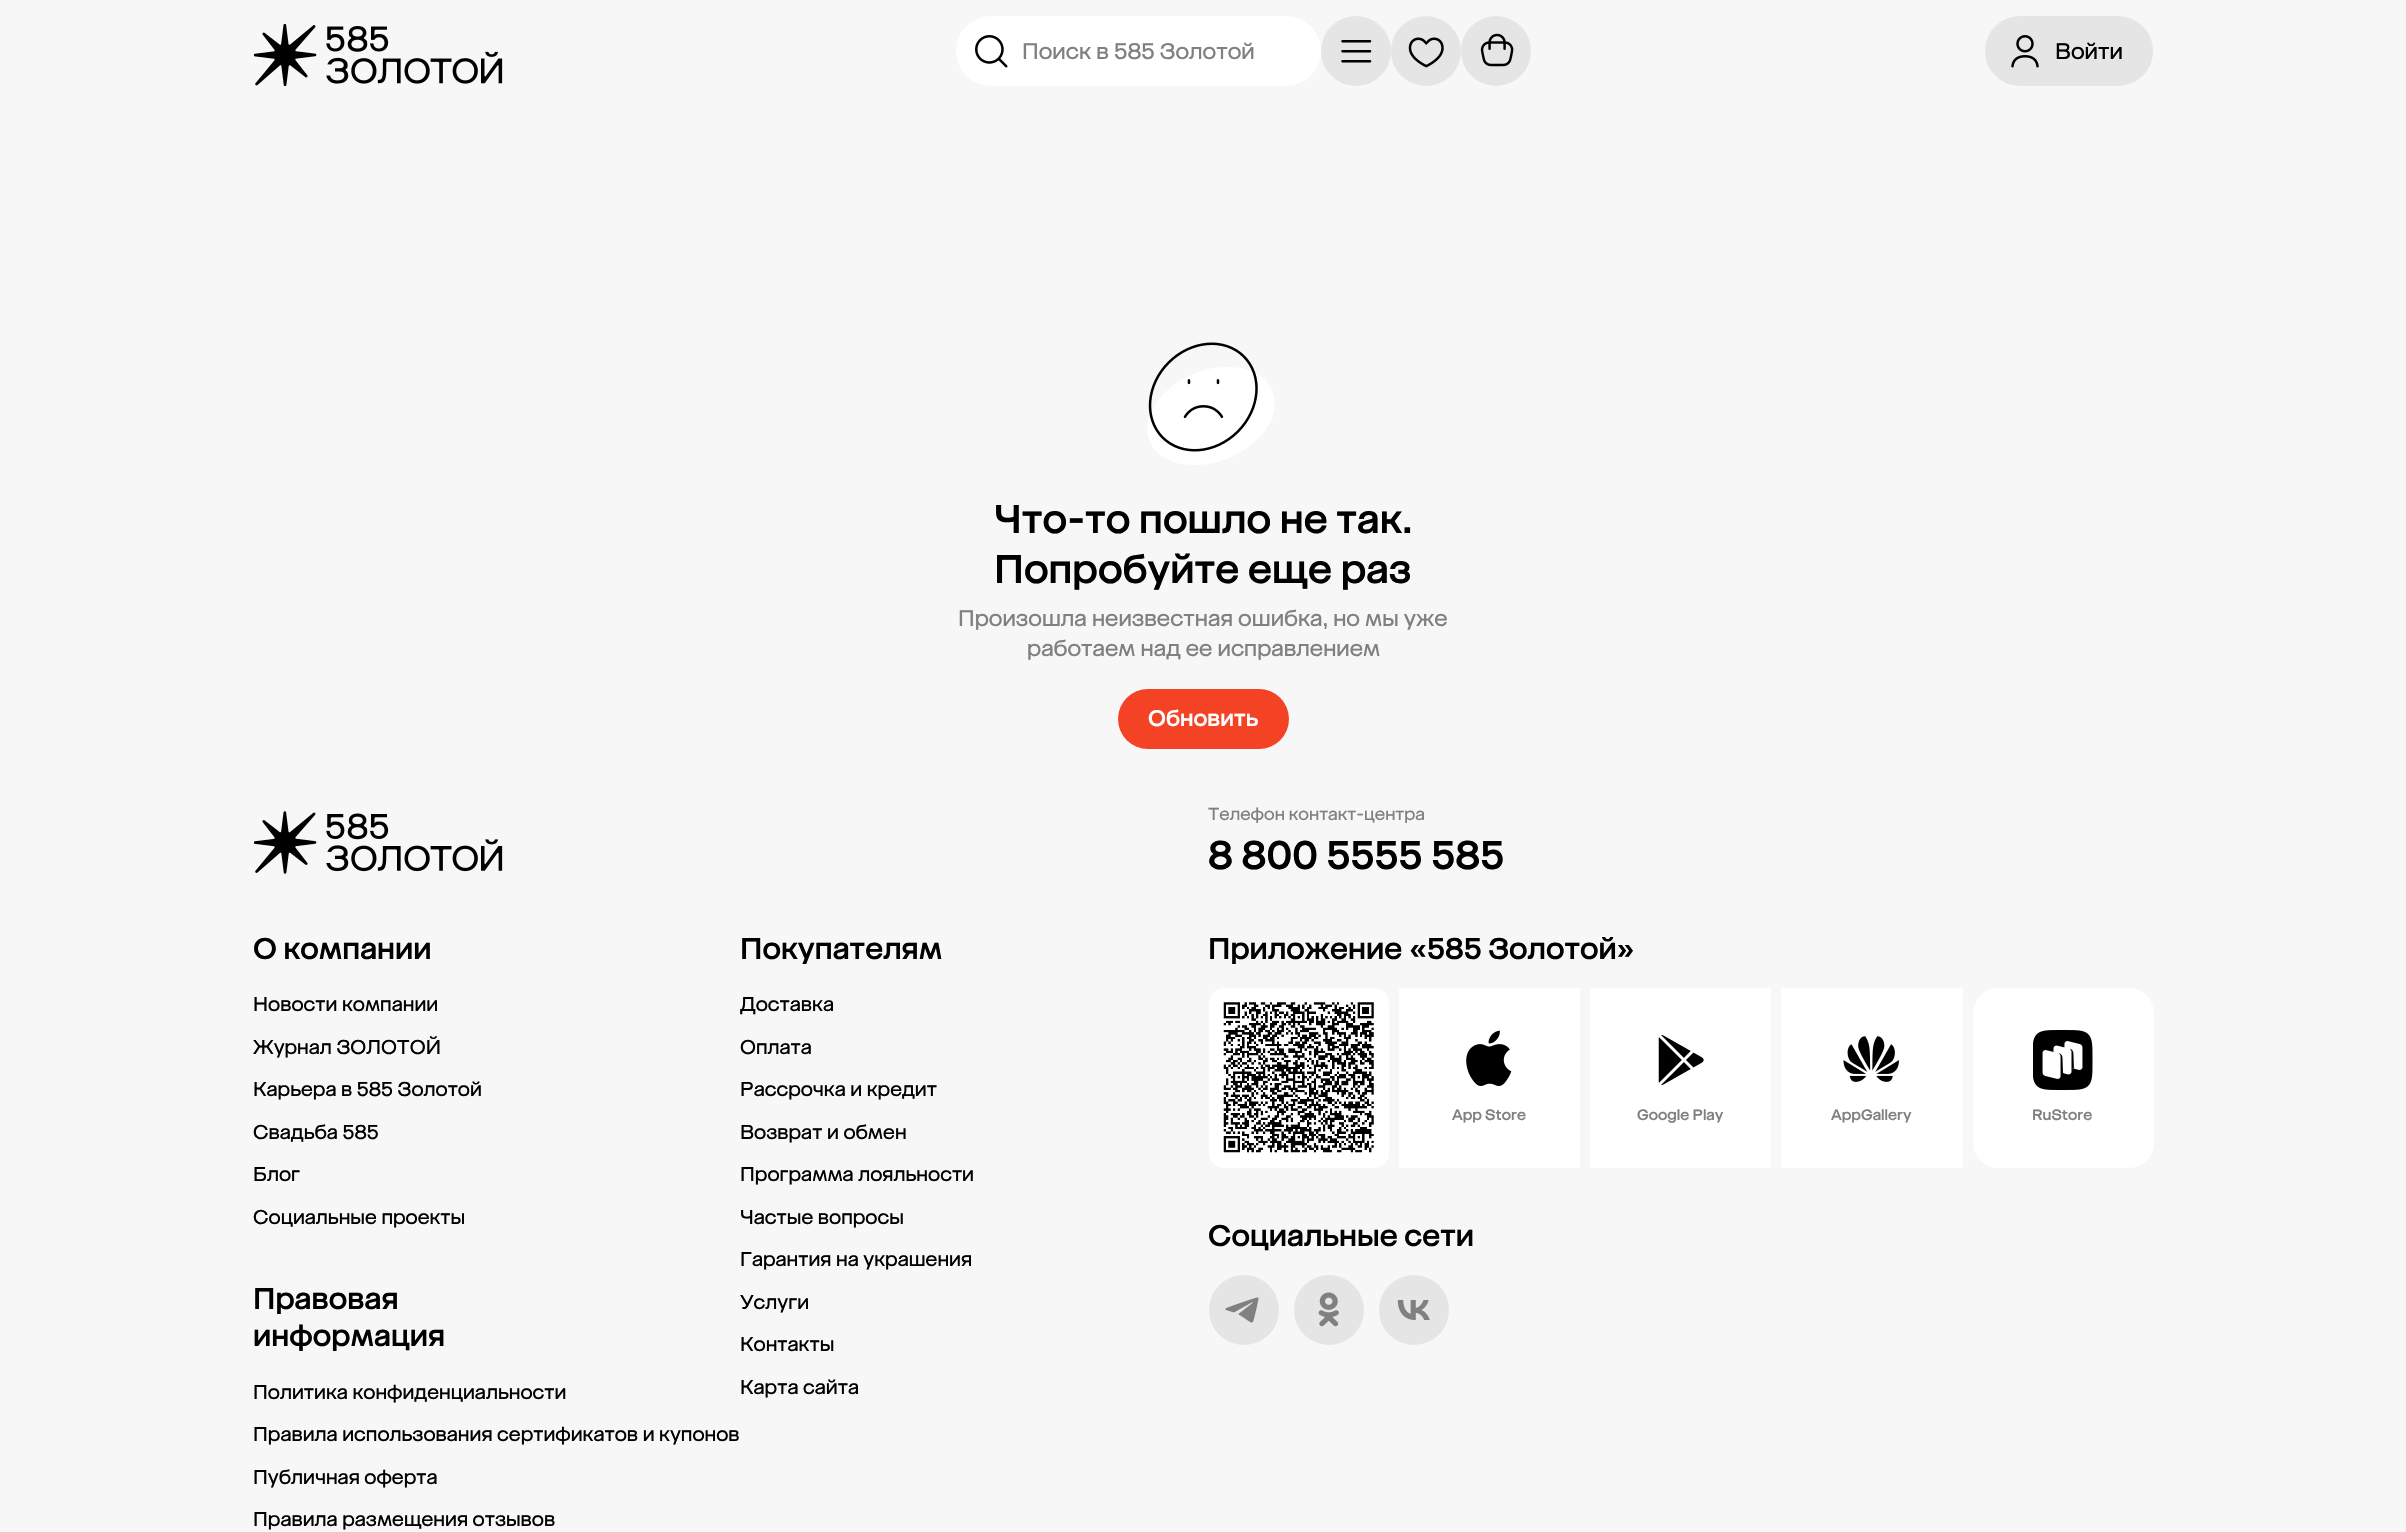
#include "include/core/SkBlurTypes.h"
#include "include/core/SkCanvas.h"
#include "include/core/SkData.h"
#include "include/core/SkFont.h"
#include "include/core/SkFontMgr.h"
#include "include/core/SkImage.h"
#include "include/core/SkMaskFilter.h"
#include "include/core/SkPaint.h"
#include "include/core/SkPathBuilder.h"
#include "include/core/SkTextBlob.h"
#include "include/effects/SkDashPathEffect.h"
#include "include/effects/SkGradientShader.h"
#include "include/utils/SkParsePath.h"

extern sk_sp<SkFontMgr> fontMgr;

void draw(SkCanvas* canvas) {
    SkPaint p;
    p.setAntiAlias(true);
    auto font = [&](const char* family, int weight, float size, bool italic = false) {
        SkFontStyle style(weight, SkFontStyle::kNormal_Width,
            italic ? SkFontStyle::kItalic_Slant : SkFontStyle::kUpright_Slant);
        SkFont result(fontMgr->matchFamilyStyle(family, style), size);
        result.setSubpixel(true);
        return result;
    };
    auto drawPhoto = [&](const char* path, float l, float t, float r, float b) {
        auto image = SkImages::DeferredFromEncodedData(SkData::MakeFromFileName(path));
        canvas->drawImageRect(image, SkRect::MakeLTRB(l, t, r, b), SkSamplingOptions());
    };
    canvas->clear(0xFFF7F7F7);
    drawPhoto("media/1.png", 254, 24, 503, 86);
    p.setColor(0xFFFFFFFF);
    canvas->drawRoundRect(SkRect::MakeLTRB(956, 16, 1321, 86), 35, 35, p);
    drawPhoto("media/2.png", 975, 35, 1008, 68);
    auto font1 = font("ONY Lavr", 400, 22.5f);
    p.setColor(0xFF808080);
    canvas->drawString("Поиск в 585 Золотой", 1022, 59, font1, p);
    p.setColor(0xFFE5E5E5);
    canvas->drawCircle(1356, 51, 35, p);
    drawPhoto("media/3.png", 1341, 40, 1372, 63);
    canvas->drawCircle(1426, 51, 35, p);
    drawPhoto("media/4.png", 1408, 37, 1444, 68);
    canvas->drawCircle(1496, 51, 35, p);
    drawPhoto("media/5.png", 1480, 33, 1514, 67);
    canvas->drawRoundRect(SkRect::MakeLTRB(1985, 16, 2153, 86), 35, 35, p);
    drawPhoto("media/6.png", 2011, 35, 2039, 68);
    p.setColor(0xFF000000);
    canvas->drawString("Войти", 2055, 59, font1, p);
    drawPhoto("media/7.png", 1147, 342, 1275, 465);
    auto font2 = font("ONY Lavr", 500, 40);
    canvas->drawString("Что-то пошло не так.", 994, 533, font2, p);
    canvas->drawString("Попробуйте еще раз", 994, 583, font2, p);
    p.setColor(0xFF808080);
    canvas->drawString("Произошла неизвестная ошибка, но мы уже", 958, 626, font1, p);
    canvas->drawString("работаем над ее исправлением", 1027, 656, font1, p);
    p.setColor(0xFFF44224);
    canvas->drawRoundRect(SkRect::MakeLTRB(1118, 689, 1289, 749), 30, 30, p);
    auto font3 = font("ONY Lavr", 500, 22.5f);
    p.setColor(0xFFFFFFFF);
    canvas->drawString("Обновить", 1148, 726, font3, p);
    drawPhoto("media/8.png", 254, 811, 503, 874);
    auto font4 = font("ONY Lavr", 500, 30);
    p.setColor(0xFF000000);
    canvas->drawString("О компании", 253, 959, font4, p);
    auto font5 = font("ONY Lavr", 400, 20);
    {
        const struct { const char* s; float x, y; } items[] = {
            {"Новости компании", 253, 1011},
            {"Журнал ЗОЛОТОЙ", 253, 1054},
            {"Карьера в 585 Золотой", 253, 1096},
            {"Свадьба 585", 253, 1139},
            {"Блог", 253, 1181},
            {"Социальные проекты", 253, 1224},
        };
        for (auto [s, x, y] : items) {
            canvas->drawString(s, x, y, font5, p);
        }
    }
    canvas->drawString("Правовая", 253, 1309, font4, p);
    canvas->drawString("информация", 253, 1346, font4, p);
    {
        const struct { const char* s; float x, y; } items[] = {
            {"Политика конфиденциальности", 253, 1399},
            {"Правила использования сертификатов и купонов", 253, 1441},
            {"Публичная оферта", 253, 1484},
            {"Правила размещения отзывов", 253, 1526},
        };
        for (auto [s, x, y] : items) {
            canvas->drawString(s, x, y, font5, p);
        }
    }
    canvas->drawString("Покупателям", 740, 959, font4, p);
    {
        const struct { const char* s; float x, y; } items[] = {
            {"Доставка", 740, 1011},
            {"Oплата", 740, 1054},
            {"Рассрочка и кредит", 740, 1096},
            {"Возврат и обмен", 740, 1139},
            {"Программа лояльности", 740, 1181},
            {"Частые вопросы", 740, 1224},
            {"Гарантия на украшения", 740, 1266},
            {"Услуги", 740, 1309},
            {"Контакты", 740, 1351},
            {"Карта сайта", 740, 1394},
        };
        for (auto [s, x, y] : items) {
            canvas->drawString(s, x, y, font5, p);
        }
    }
    auto font6 = font("ONY Lavr", 400, 17.5f);
    p.setColor(0xFF808080);
    canvas->drawString("Телефон контакт-центра", 1208, 820, font6, p);
    p.setColor(0xFF000000);
    canvas->drawString("8 800 5555 585", 1208, 869, font2, p);
    canvas->drawString("Приложение «585 Золотой»", 1208, 959, font4, p);
    p.setColor(0xFFFFFFFF);
    canvas->drawRoundRect(SkRect::MakeLTRB(1209, 988, 1389, 1168), 15, 15, p);
    drawPhoto("media/9.png", 1223, 1002, 1374, 1153);
    canvas->drawRect(SkRect::MakeLTRB(1399, 988, 1580, 1168), p);
    drawPhoto("media/10.png", 1466, 1030, 1512, 1086);
    auto font7 = font("ONY Lavr", 500, 15);
    p.setColor(0xFF808080);
    canvas->drawString("App Store", 1452, 1120, font7, p);
    p.setColor(0xFFFFFFFF);
    canvas->drawRect(SkRect::MakeLTRB(1590, 988, 1771, 1168), p);
    drawPhoto("media/11.png", 1658, 1035, 1704, 1085);
    p.setColor(0xFF808080);
    canvas->drawString("Google Play", 1637, 1120, font7, p);
    p.setColor(0xFFFFFFFF);
    canvas->drawRect(SkRect::MakeLTRB(1781, 988, 1963, 1168), p);
    drawPhoto("media/12.png", 1843, 1036, 1899, 1082);
    p.setColor(0xFF808080);
    canvas->drawString("AppGallery", 1831, 1120, font7, p);
    p.setColor(0xFFFFFFFF);
    canvas->drawRoundRect(SkRect::MakeLTRB(1973, 988, 2154, 1168), 25, 25, p);
    drawPhoto("media/13.png", 2033, 1030, 2093, 1090);
    p.setColor(0xFF808080);
    canvas->drawString("RuStore", 2032, 1120, font7, p);
    p.setColor(0xFF000000);
    canvas->drawString("Социальные сети", 1208, 1246, font4, p);
    p.setColor(0xFFE5E5E5);
    canvas->drawCircle(1244, 1310, 35, p);
    drawPhoto("media/14.png", 1225, 1297, 1259, 1323);
    canvas->drawCircle(1329, 1310, 35, p);
    drawPhoto("media/15.png", 1318, 1292, 1339, 1327);
    canvas->drawCircle(1414, 1310, 35, p);
    drawPhoto("media/16.png", 1397, 1300, 1430, 1320);
}
